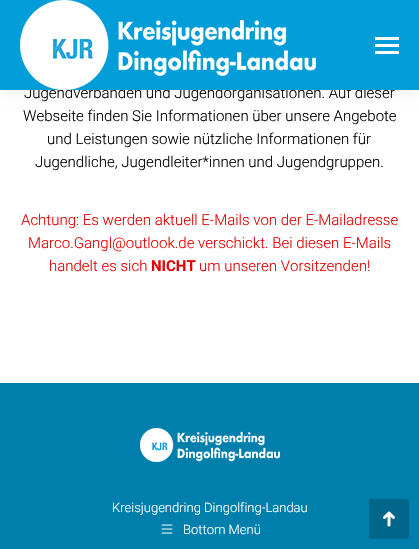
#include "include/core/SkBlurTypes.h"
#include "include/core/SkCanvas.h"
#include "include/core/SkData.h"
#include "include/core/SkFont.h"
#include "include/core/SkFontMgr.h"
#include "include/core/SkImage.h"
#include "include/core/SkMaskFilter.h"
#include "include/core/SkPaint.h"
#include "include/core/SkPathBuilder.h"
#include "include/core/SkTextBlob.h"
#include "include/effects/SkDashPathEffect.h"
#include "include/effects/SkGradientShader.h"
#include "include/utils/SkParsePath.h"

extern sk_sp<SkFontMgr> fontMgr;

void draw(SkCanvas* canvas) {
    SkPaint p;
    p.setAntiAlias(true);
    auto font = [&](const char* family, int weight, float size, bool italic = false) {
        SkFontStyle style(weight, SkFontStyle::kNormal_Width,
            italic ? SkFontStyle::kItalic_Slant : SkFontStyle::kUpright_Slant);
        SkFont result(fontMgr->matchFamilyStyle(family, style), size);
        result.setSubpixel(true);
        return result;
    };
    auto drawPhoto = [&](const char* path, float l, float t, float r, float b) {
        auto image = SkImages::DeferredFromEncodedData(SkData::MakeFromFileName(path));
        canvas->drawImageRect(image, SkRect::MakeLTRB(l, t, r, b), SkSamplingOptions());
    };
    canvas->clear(0xFFFFFFFF);
    p.setColor(0x12000000);
    p.setMaskFilter(SkMaskFilter::MakeBlur(kNormal_SkBlurStyle, 7.5f));
    canvas->drawRect(SkRect::MakeLTRB(-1, -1, 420, 91), p);
    p.setMaskFilter(nullptr);
    auto font1 = font("Roboto", 300, 15);
    p.setColor(0xFF000000);
    canvas->drawString("Jugendverbänden und Jugendorganisationen. Auf dieser", 24, 98, font1, p);
    p.setColor(0xFF009DD8);
    canvas->drawRect(SkRect::MakeLTRB(0, 0, 419, 90), p);
    drawPhoto("media/1.png", 20, 0, 316, 90);
    {
        const struct { float l, t, r, b; SkColor color; } items[] = {
            {375, 37, 399, 40, 0xFFFFFFFF},
            {375, 44, 399, 47, 0xFFFFFFFF},
            {375, 51, 399, 54, 0xFFFFFFFF},
        };
        for (auto [l, t, r, b, color] : items) {
            p.setColor(color);
            canvas->drawRect(SkRect::MakeLTRB(l, t, r, b), p);
        }
    }
    p.setColor(0xFF000000);
    {
        const struct { const char* s; float x, y; } items[] = {
            {"Webseite finden Sie Informationen über unsere Angebote", 23, 121},
            {"und Leistungen sowie nützliche Informationen für", 47, 144},
            {"Jugendliche, Jugendleiter*innen und Jugendgruppen.", 35, 167},
        };
        for (auto [s, x, y] : items) {
            canvas->drawString(s, x, y, font1, p);
        }
    }
    p.setColor(0xFFE60000);
    {
        const struct { const char* s; float x, y; } items[] = {
            {"Achtung: Es werden aktuell E-Mails von der E-Mailadresse", 21, 225},
            {"Marco.Gangl@outlook.de verschickt. Bei diesen E-Mails", 28, 248},
            {"handelt es sich", 49, 271},
        };
        for (auto [s, x, y] : items) {
            canvas->drawString(s, x, y, font1, p);
        }
    }
    auto font2 = font("Roboto", 700, 15);
    canvas->drawString("NICHT", 151, 271, font2, p);
    canvas->drawString("um unseren Vorsitzenden!", 199, 271, font1, p);
    p.setColor(0xFF007FAD);
    canvas->drawRect(SkRect::MakeLTRB(0, 383, 419, 549), p);
    drawPhoto("media/2.png", 140, 428, 280, 462);
    auto font3 = font("Roboto", 300, 13);
    p.setColor(0xFFFFFFFF);
    canvas->drawString("Kreisjugendring Dingolfing-Landau", 112, 512, font3, p);
    drawPhoto("media/3.png", 161, 524, 173, 534);
    canvas->drawString("Bottom Menü", 183, 534, font3, p);
    p.setColor(0xFF00668A);
    canvas->drawRoundRect(SkRect::MakeLTRB(369, 499, 409, 539), 2, 2, p);
    drawPhoto("media/4.png", 383, 511, 395, 527);
}
